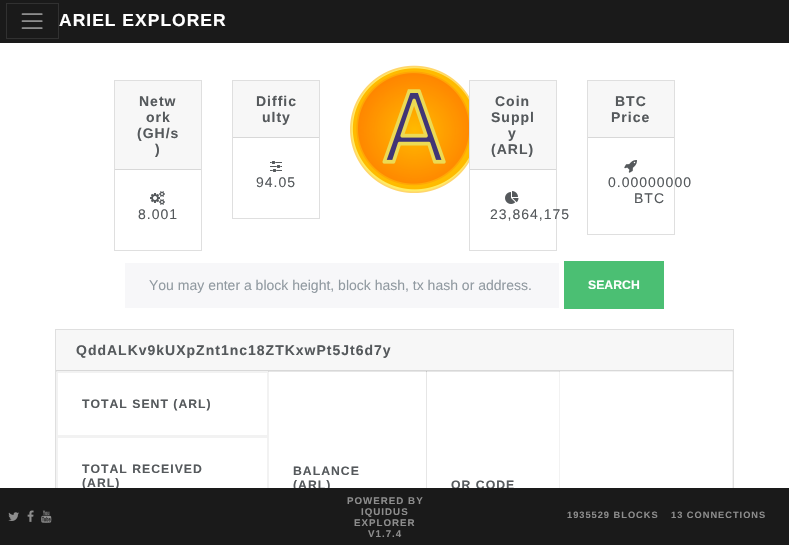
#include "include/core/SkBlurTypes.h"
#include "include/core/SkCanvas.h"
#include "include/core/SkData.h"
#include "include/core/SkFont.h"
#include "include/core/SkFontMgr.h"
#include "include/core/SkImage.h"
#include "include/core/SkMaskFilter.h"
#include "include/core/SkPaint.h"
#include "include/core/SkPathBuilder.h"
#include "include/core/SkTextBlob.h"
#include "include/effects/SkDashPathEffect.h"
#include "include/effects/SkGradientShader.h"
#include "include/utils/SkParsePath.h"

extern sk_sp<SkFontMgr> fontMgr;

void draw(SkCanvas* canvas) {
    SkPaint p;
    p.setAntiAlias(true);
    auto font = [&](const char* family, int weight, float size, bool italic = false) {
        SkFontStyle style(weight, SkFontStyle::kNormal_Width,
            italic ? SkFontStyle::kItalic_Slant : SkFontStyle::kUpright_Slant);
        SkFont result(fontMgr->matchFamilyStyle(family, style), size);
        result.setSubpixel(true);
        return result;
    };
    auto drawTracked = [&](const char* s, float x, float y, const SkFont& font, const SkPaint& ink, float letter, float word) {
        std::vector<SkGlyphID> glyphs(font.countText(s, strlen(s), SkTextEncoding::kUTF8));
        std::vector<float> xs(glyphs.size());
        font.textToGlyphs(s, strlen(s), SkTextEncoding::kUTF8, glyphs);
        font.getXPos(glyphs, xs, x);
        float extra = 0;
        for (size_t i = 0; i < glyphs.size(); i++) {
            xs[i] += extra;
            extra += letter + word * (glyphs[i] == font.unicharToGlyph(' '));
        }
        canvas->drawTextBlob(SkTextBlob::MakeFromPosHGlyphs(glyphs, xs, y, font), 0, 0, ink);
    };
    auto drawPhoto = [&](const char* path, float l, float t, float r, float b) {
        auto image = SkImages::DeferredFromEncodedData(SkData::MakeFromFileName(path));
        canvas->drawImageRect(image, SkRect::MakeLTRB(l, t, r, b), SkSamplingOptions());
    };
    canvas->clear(0xFFFFFFFF);
    {
        const struct { float l, t, r, b; SkColor color; } items[] = {
            {268, 371, 269, 488, 0xFFF2F2F2},
            {426, 371, 427, 488, 0xFFE6E6E6},
            {559, 371, 560, 488, 0xFFF2F2F2},
            {56, 371, 57, 488, 0xFFF2F2F2},
            {732, 371, 733, 488, 0xFFF2F2F2},
            {0, 0, 789, 43, 0xFF1A1A1A},
        };
        for (auto [l, t, r, b, color] : items) {
            p.setColor(color);
            canvas->drawRect(SkRect::MakeLTRB(l, t, r, b), p);
        }
    }
    p.setStyle(SkPaint::kStroke_Style);
    p.setStrokeWidth(1);
    p.setColor(0xFF313131);
    canvas->drawRect(SkRect::MakeLTRB(6.5f, 3.5f, 58.5f, 38.5f), p);
    drawPhoto("media/1.png", 21, 13, 43, 29);
    auto font1 = font("Liberation Sans", 700, 17.5f);
    p.setStyle(SkPaint::kFill_Style);
    p.setColor(0xFFFFFFFF);
    drawTracked("ARIEL EXPLORER", 59, 26, font1, p, 1, 0);
    p.setStyle(SkPaint::kStroke_Style);
    p.setColor(0xFFDFDFDF);
    canvas->drawRect(SkRect::MakeLTRB(114.5f, 80.5f, 201.5f, 250.5f), p);
    p.setStyle(SkPaint::kFill_Style);
    p.setColor(0xFFF7F7F7);
    canvas->drawRect(SkRect::MakeLTRB(115, 81, 201, 169), p);
    p.setColor(0xFFD8D8D8);
    canvas->drawRect(SkRect::MakeLTRB(115, 169, 201, 170), p);
    auto font2 = font("Liberation Sans", 700, 14);
    p.setColor(0xFF55595C);
    {
        const struct { const char* s; float x, y; } items[] = {
            {"Netw", 139, 106},
            {"ork", 146, 122},
            {"(GH/s", 137, 138},
            {")", 155, 154},
        };
        for (auto [s, x, y] : items) {
            drawTracked(s, x, y, font2, p, 1, 0);
        }
    }
    drawPhoto("media/2.png", 150, 191, 165, 205);
    auto font3 = font("Liberation Sans", 400, 14);
    drawTracked("8.001", 138, 219, font3, p, 1, 0);
    p.setStyle(SkPaint::kStroke_Style);
    p.setColor(0xFFDFDFDF);
    canvas->drawRect(SkRect::MakeLTRB(232.5f, 80.5f, 319.5f, 218.5f), p);
    p.setStyle(SkPaint::kFill_Style);
    p.setColor(0xFFF7F7F7);
    canvas->drawRect(SkRect::MakeLTRB(233, 81, 319, 137), p);
    p.setColor(0xFFD8D8D8);
    canvas->drawRect(SkRect::MakeLTRB(233, 137, 319, 138), p);
    p.setColor(0xFF55595C);
    drawTracked("Diffic", 256, 106, font2, p, 1, 0);
    drawTracked("ulty", 262, 122, font2, p, 1, 0);
    drawPhoto("media/3.png", 270, 161, 282, 172);
    drawTracked("94.05", 256, 187, font3, p, 1, 0);
    drawPhoto("media/4.png", 350, 65, 469, 193);
    p.setStyle(SkPaint::kStroke_Style);
    p.setColor(0xFFDFDFDF);
    canvas->drawRect(SkRect::MakeLTRB(469.5f, 80.5f, 556.5f, 250.5f), p);
    p.setStyle(SkPaint::kFill_Style);
    p.setColor(0xFFF7F7F7);
    canvas->drawRect(SkRect::MakeLTRB(470, 81, 556, 169), p);
    p.setColor(0xFFD8D8D8);
    canvas->drawRect(SkRect::MakeLTRB(470, 169, 556, 170), p);
    p.setColor(0xFF55595C);
    {
        const struct { const char* s; float x, y; } items[] = {
            {"Coin", 495, 106},
            {"Suppl", 491, 122},
            {"y", 508, 138},
            {"(ARL)", 491, 154},
        };
        for (auto [s, x, y] : items) {
            drawTracked(s, x, y, font2, p, 1, 0);
        }
    }
    drawPhoto("media/5.png", 505, 191, 519, 204);
    drawTracked("23,864,175", 490, 219, font3, p, 1, 0);
    p.setStyle(SkPaint::kStroke_Style);
    p.setColor(0xFFDFDFDF);
    canvas->drawRect(SkRect::MakeLTRB(587.5f, 80.5f, 674.5f, 234.5f), p);
    p.setStyle(SkPaint::kFill_Style);
    p.setColor(0xFFF7F7F7);
    canvas->drawRect(SkRect::MakeLTRB(588, 81, 674, 137), p);
    p.setColor(0xFFD8D8D8);
    canvas->drawRect(SkRect::MakeLTRB(588, 137, 674, 138), p);
    p.setColor(0xFF55595C);
    drawTracked("BTC", 615, 106, font2, p, 1, 0);
    drawTracked("Price", 611, 122, font2, p, 1, 0);
    drawPhoto("media/6.png", 624, 160, 637, 173);
    drawTracked("0.00000000", 608, 187, font3, p, 1, 0);
    drawTracked("BTC", 634, 203, font3, p, 1, 0);
    p.setColor(0xFFF7F7F9);
    canvas->drawRect(SkRect::MakeLTRB(125, 263, 559, 308), p);
    p.setColor(0xFF919AA1);
    canvas->drawString("You may enter a block height, block hash, tx hash or address.", 149, 290, font3, p);
    p.setColor(0xFF4BBF73);
    canvas->drawRect(SkRect::MakeLTRB(564, 261, 664, 309), p);
    auto font4 = font("Liberation Sans", 700, 12.25f);
    p.setColor(0xFFFFFFFF);
    canvas->drawString("SEARCH", 588, 289, font4, p);
    p.setStyle(SkPaint::kStroke_Style);
    p.setColor(0xFFDFDFDF);
    canvas->drawRect(SkRect::MakeLTRB(55.5f, 329.5f, 733.5f, 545.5f), p);
    p.setStyle(SkPaint::kFill_Style);
    p.setColor(0xFFF7F7F7);
    canvas->drawRect(SkRect::MakeLTRB(56, 330, 733, 370), p);
    p.setColor(0xFFD8D8D8);
    canvas->drawRect(SkRect::MakeLTRB(56, 370, 733, 371), p);
    p.setColor(0xFF55595C);
    drawTracked("QddALKv9kUXpZnt1nc18ZTKxwPt5Jt6d7y", 76, 355, font2, p, 1, 0);
    {
        const struct { float l, t, r, b; SkColor color; } items[] = {
            {56, 371, 733, 372, 0xFFF2F2F2},
            {268, 371, 560, 372, 0xFFE6E6E6},
            {268, 371, 269, 372, 0xFFDBDBDB},
            {56, 371, 57, 372, 0xFFE6E6E6},
            {732, 371, 733, 372, 0xFFE6E6E6},
        };
        for (auto [l, t, r, b, color] : items) {
            p.setColor(color);
            canvas->drawRect(SkRect::MakeLTRB(l, t, r, b), p);
        }
    }
    p.setColor(0xFFF2F2F2);
    canvas->drawPath(SkPathBuilder().moveTo(57, 372).lineTo(268, 372).lineTo(267, 373).lineTo(58, 373).close().detach(), p);
    p.setColor(0x0D000000);
    canvas->drawPath(SkPathBuilder().moveTo(268, 372).lineTo(268, 437).lineTo(267, 435).lineTo(267, 373).close().detach(), p);
    canvas->drawPath(SkPathBuilder().moveTo(268, 437).lineTo(57, 437).lineTo(58, 435).lineTo(267, 435).close().detach(), p);
    canvas->drawPath(SkPathBuilder().moveTo(57, 437).lineTo(57, 372).lineTo(58, 373).lineTo(58, 435).close().detach(), p);
    p.setColor(0xFF55595C);
    drawTracked("TOTAL SENT (ARL)", 82, 408, font4, p, 1, 0);
    p.setColor(0xFFF2F2F2);
    canvas->drawPath(SkPathBuilder().moveTo(57, 437).lineTo(268, 437).lineTo(267, 438).lineTo(58, 438).close().detach(), p);
    p.setColor(0x0D000000);
    canvas->drawPath(SkPathBuilder().moveTo(268, 437).lineTo(268, 516).lineTo(267, 514).lineTo(267, 438).close().detach(), p);
    canvas->drawPath(SkPathBuilder().moveTo(57, 516).lineTo(57, 437).lineTo(58, 438).lineTo(58, 514).close().detach(), p);
    p.setColor(0xFF55595C);
    {
        const struct { const char* s; float x, y; } items[] = {
            {"TOTAL RECEIVED", 82, 473},
            {"(ARL)", 82, 487},
            {"BALANCE", 293, 475},
            {"(ARL)", 293, 489},
        };
        for (auto [s, x, y] : items) {
            drawTracked(s, x, y, font4, p, 1, 0);
        }
    }
    p.setColor(0xFFC6C6C6);
    canvas->drawRect(SkRect::MakeLTRB(426, 371, 427, 372), p);
    p.setColor(0xFFDBDBDB);
    canvas->drawRect(SkRect::MakeLTRB(559, 371, 560, 372), p);
    p.setColor(0xFF55595C);
    drawTracked("QR CODE", 451, 489, font4, p, 1, 0);
    p.setColor(0xFF1A1A1A);
    canvas->drawRect(SkRect::MakeLTRB(0, 488, 789, 545), p);
    drawPhoto("media/7.png", 8, 512, 19, 521);
    drawPhoto("media/8.png", 27, 510, 34, 522);
    drawPhoto("media/9.png", 41, 510, 52, 523);
    auto font5 = font("Liberation Sans", 700, 9.75f);
    p.setColor(0xFF8D8D8D);
    {
        const struct { const char* s; float x, y; } items[] = {
            {"POWERED BY", 347, 504},
            {"IQUIDUS", 361, 515},
            {"EXPLORER", 354, 526},
            {"V1.7.4", 368, 537},
        };
        for (auto [s, x, y] : items) {
            drawTracked(s, x, y, font5, p, 1, 0);
        }
    }
    auto font6 = font("Liberation Sans", 700, 9.25f);
    drawTracked("1935529 BLOCKS", 567, 518, font6, p, 1, 0);
    drawTracked("13 CONNECTIONS", 671, 518, font6, p, 1, 0);
}
